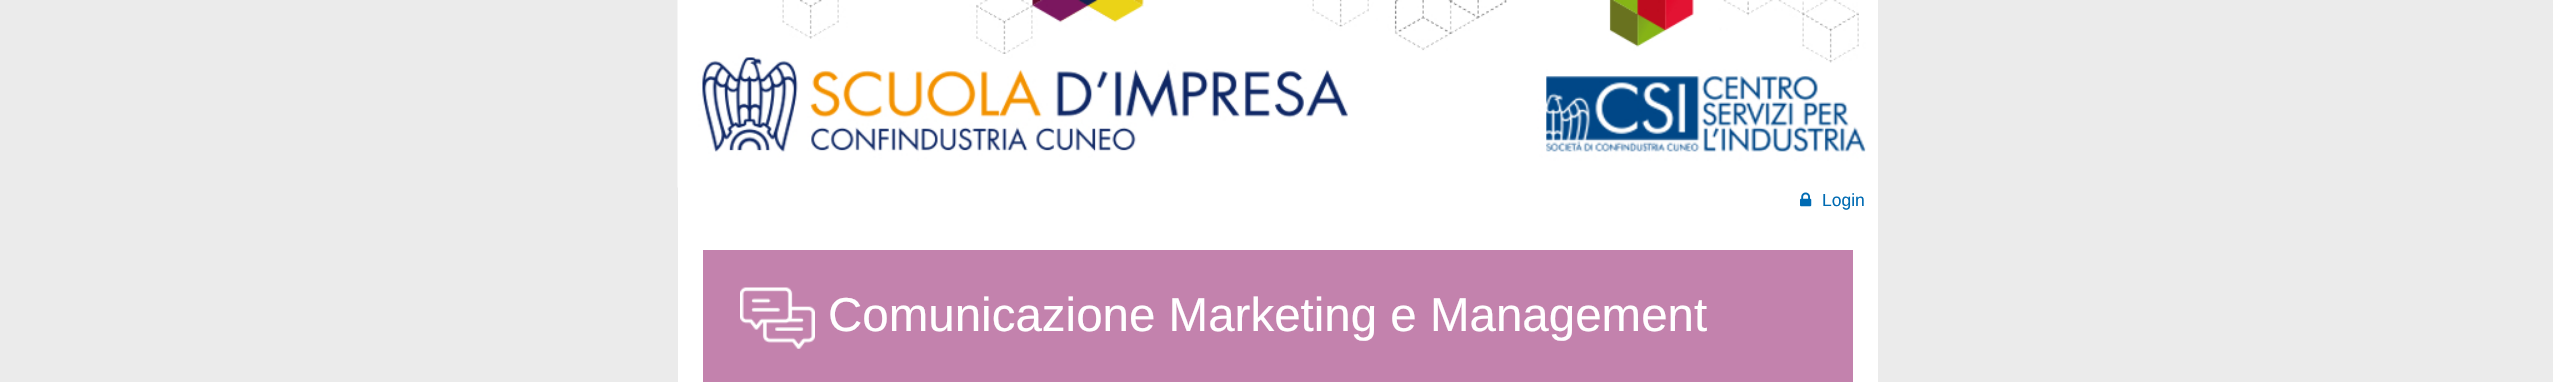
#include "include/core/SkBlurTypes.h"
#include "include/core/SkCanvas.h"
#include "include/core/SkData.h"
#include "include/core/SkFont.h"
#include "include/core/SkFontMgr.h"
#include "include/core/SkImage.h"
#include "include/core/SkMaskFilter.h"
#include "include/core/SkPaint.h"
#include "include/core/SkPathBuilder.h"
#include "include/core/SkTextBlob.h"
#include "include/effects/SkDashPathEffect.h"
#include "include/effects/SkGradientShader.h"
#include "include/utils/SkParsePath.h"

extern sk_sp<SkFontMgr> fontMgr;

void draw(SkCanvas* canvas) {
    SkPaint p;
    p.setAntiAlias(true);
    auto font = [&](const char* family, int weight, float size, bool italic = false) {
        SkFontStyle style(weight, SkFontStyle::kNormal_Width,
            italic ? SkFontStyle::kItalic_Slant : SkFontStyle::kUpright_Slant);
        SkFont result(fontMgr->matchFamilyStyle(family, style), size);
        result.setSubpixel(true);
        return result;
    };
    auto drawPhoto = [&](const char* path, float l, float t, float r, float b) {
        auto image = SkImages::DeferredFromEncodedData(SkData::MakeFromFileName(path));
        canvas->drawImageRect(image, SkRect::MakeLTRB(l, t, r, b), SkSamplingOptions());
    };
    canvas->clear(0xFFEBEBEB);
    p.setColor(0xFFFFFFFF);
    canvas->drawRect(SkRect::MakeLTRB(678, 0, 1878, 382), p);
    drawPhoto("media/1.png", 677, 0, 1866, 188);
    drawPhoto("media/2.png", 1800, 192, 1812, 207);
    auto font1 = font("Liberation Sans", 400, 17.5f);
    p.setColor(0xFF006BB3);
    canvas->drawString("Login", 1822, 206, font1, p);
    p.setColor(0xFFC382AD);
    canvas->drawRect(SkRect::MakeLTRB(703, 250, 1853, 382), p);
    drawPhoto("media/3.png", 740, 287, 815, 349);
    auto font2 = font("Liberation Sans", 400, 47.5f);
    p.setColor(0xFFFFFFFF);
    canvas->drawString("Comunicazione Marketing e Management", 828, 331, font2, p);
}
